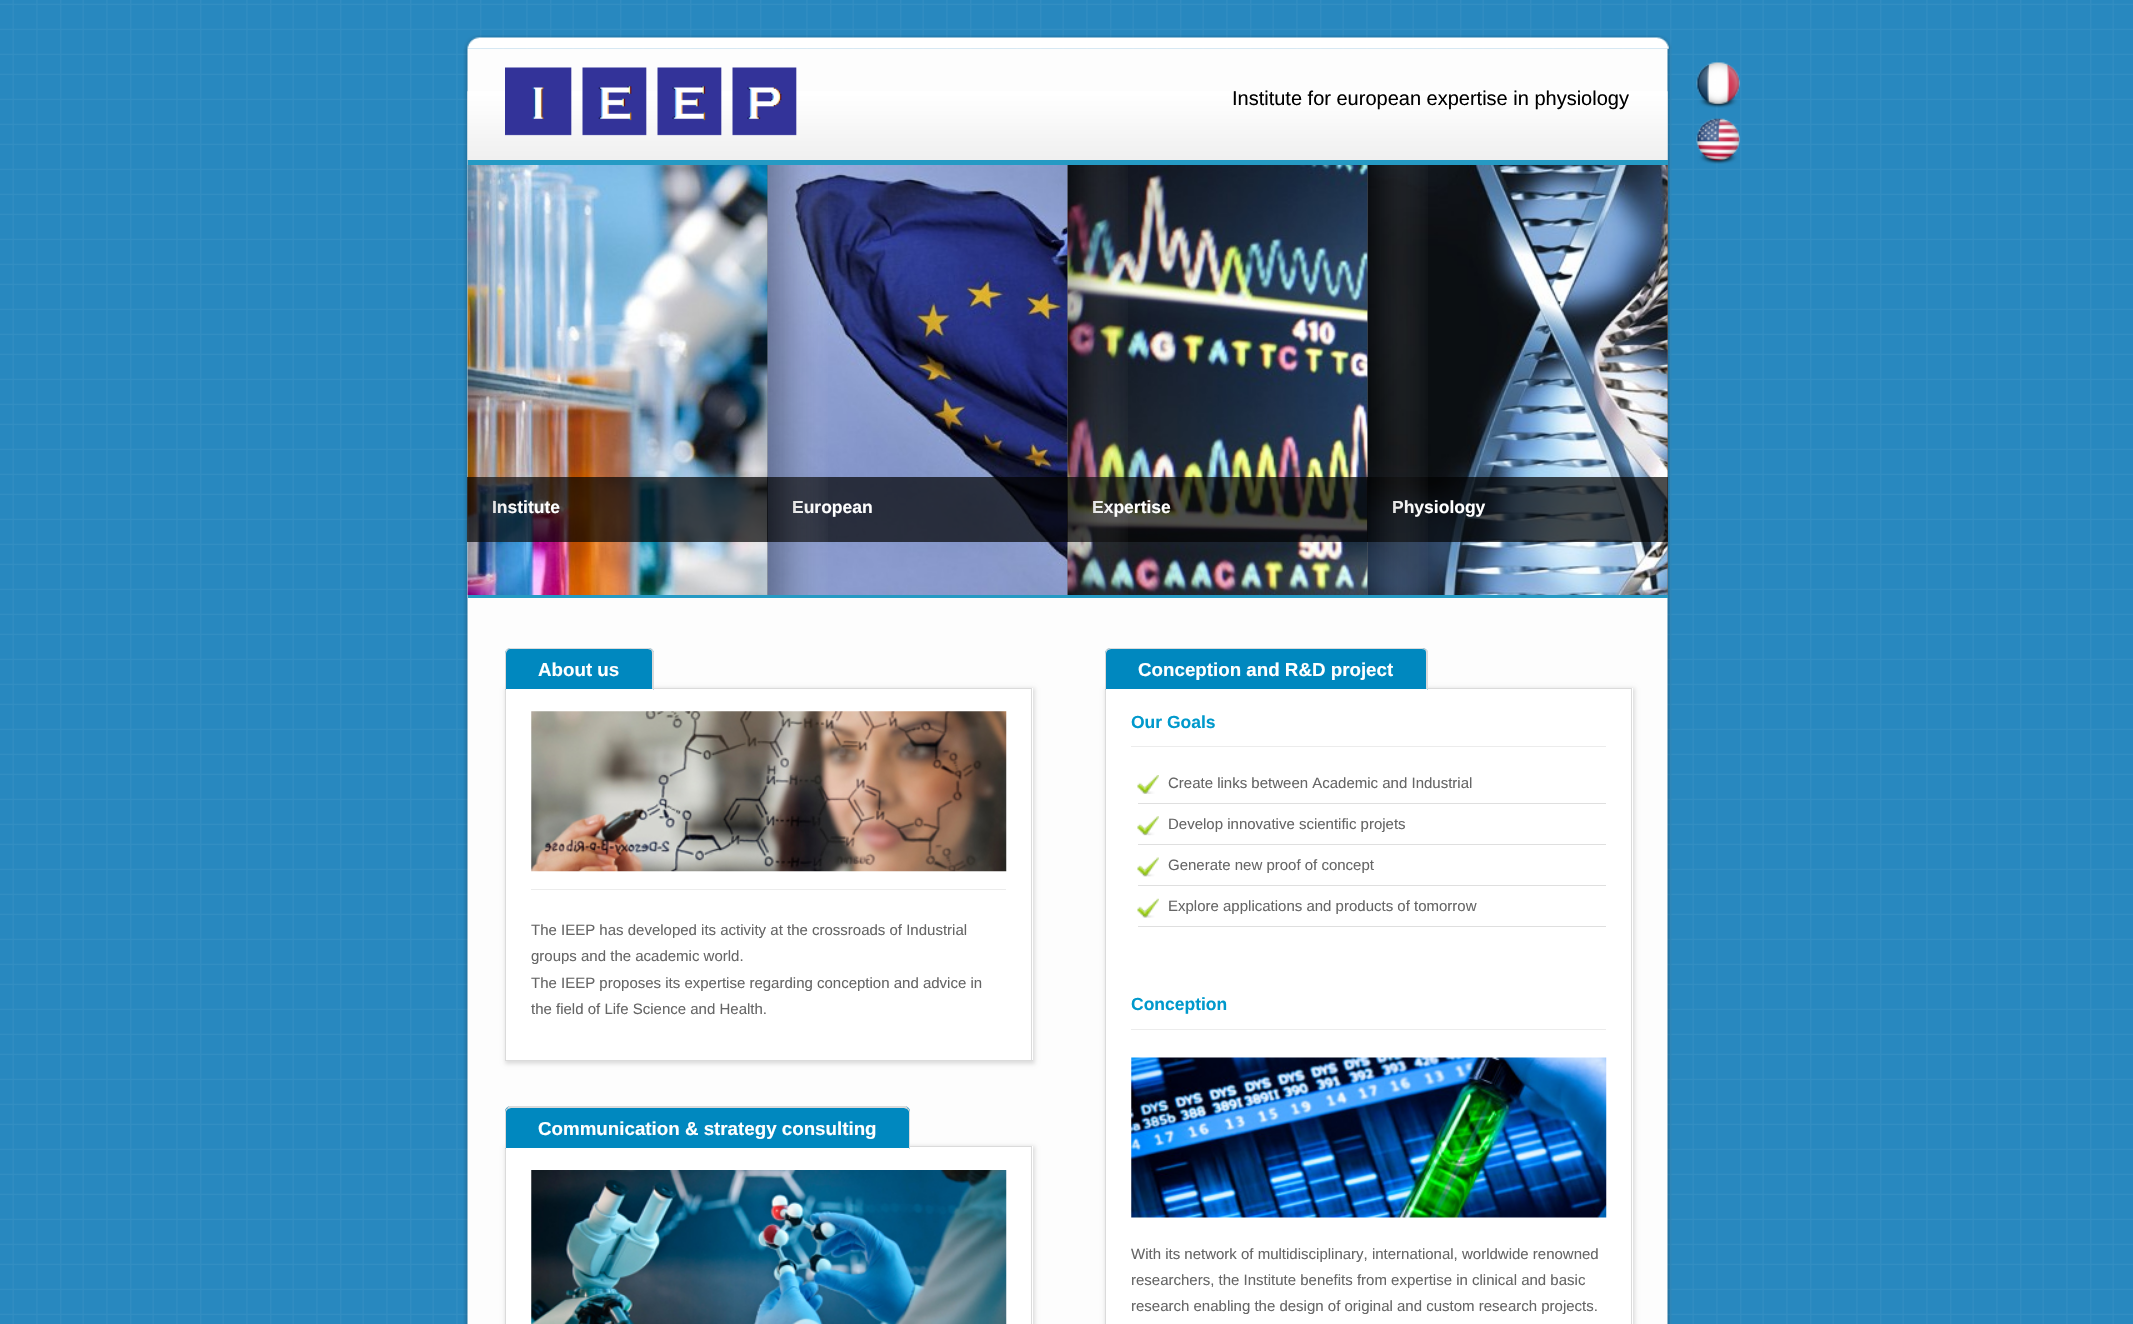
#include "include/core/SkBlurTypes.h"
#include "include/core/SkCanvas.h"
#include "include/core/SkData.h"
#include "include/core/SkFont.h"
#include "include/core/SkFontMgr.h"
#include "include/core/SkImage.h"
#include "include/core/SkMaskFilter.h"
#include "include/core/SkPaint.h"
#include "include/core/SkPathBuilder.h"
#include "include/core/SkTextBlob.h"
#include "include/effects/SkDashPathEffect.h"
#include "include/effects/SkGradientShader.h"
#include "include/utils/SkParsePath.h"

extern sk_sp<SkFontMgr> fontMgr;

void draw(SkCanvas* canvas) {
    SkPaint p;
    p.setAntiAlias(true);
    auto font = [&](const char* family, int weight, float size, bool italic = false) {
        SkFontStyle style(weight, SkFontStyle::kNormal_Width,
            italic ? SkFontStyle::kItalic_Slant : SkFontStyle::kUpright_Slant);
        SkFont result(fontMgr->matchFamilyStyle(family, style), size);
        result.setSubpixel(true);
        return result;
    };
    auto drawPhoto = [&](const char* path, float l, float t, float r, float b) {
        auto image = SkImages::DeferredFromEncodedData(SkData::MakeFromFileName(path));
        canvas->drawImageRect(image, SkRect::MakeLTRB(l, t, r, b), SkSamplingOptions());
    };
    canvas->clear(0xFF2888BF);
    drawPhoto("media/1.png", 0, 0, 2133, 1324);
    drawPhoto("media/2.png", 464, 35, 1672, 49);
    drawPhoto("media/3.png", 1696, 62, 1740, 108);
    drawPhoto("media/4.png", 463, 48, 1672, 1324);
    drawPhoto("media/5.png", 467, 91, 1668, 160);
    drawPhoto("media/6.png", 505, 67, 797, 136);
    auto font1 = font("Liberation Sans", 400, 20);
    p.setColor(0xFF000000);
    canvas->drawString("Institute for european expertise in physiology", 1232, 105, font1, p);
    p.setColor(0xFF259AC4);
    canvas->drawRect(SkRect::MakeLTRB(468, 160, 1668, 598), p);
    p.setColor(0xFF666666);
    canvas->drawRect(SkRect::MakeLTRB(767, 165, 1668, 595), p);
    drawPhoto("media/7.png", 467, 165, 768, 595);
    p.setColor(0xB3000000);
    canvas->drawRect(SkRect::MakeLTRB(467, 477, 768, 542), p);
    auto font2 = font("Liberation Sans", 700, 17.5f);
    p.setColor(0xFFFFFFFF);
    canvas->drawString("Institute", 492, 513, font2, p);
    drawPhoto("media/8.png", 467, 165, 528, 595);
    drawPhoto("media/9.png", 767, 165, 1068, 595);
    p.setColor(0xB3000000);
    canvas->drawRect(SkRect::MakeLTRB(767, 477, 1068, 542), p);
    p.setColor(0xFFFFFFFF);
    canvas->drawString("European", 792, 513, font2, p);
    drawPhoto("media/10.png", 767, 165, 828, 595);
    drawPhoto("media/11.png", 1067, 165, 1368, 595);
    p.setColor(0xB3000000);
    canvas->drawRect(SkRect::MakeLTRB(1067, 477, 1368, 542), p);
    p.setColor(0xFFFFFFFF);
    canvas->drawString("Expertise", 1092, 513, font2, p);
    drawPhoto("media/12.png", 1067, 165, 1128, 595);
    drawPhoto("media/13.png", 1367, 165, 1668, 595);
    p.setColor(0xB3000000);
    canvas->drawRect(SkRect::MakeLTRB(1367, 477, 1668, 542), p);
    p.setColor(0xFFFFFFFF);
    canvas->drawString("Physiology", 1392, 513, font2, p);
    drawPhoto("media/14.png", 1367, 165, 1428, 595);
    p.setColor(0xFFDDDDDD);
    p.setMaskFilter(SkMaskFilter::MakeBlur(kNormal_SkBlurStyle, 2));
    canvas->drawRect(SkRect::MakeLTRB(505, 688, 1035, 1064), p);
    p.setMaskFilter(nullptr);
    {
        const struct { float l, t, r, b; SkColor color; } items[] = {
            {506, 688, 1033, 1060, 0xFFFFFFFF},
            {1031, 688, 1032, 1061, 0xFFDBDBDB},
            {505, 1060, 1033, 1061, 0xFFDBDBDB},
            {505, 688, 506, 1061, 0xFFDBDBDB},
        };
        for (auto [l, t, r, b, color] : items) {
            p.setColor(color);
            canvas->drawRect(SkRect::MakeLTRB(l, t, r, b), p);
        }
    }
    p.setColor(0xFF0088BF);
    canvas->drawPath(SkPathBuilder().moveTo(511, 648).lineTo(648, 648).cubicTo(651.5f, 648, 654, 650.5f, 654, 654).lineTo(654, 690).lineTo(505, 690).lineTo(505, 654).cubicTo(505, 650.5f, 507.5f, 648, 511, 648).close().detach(), p);
    p.setColor(0xFFDBDBDB);
    canvas->drawPath(SkPathBuilder().moveTo(511, 648).cubicTo(510, 648, 508, 648, 507, 649).lineTo(508, 650).cubicTo(508, 649, 510, 649, 511, 649).lineTo(648, 649).cubicTo(649, 649, 650, 650, 651, 650).lineTo(652, 649).cubicTo(651, 648, 649, 648, 648, 648).close().detach(), p);
    canvas->drawPath(SkPathBuilder().moveTo(652, 649).lineTo(654, 652).lineTo(654, 690).lineTo(652, 688).lineTo(652, 654).cubicTo(652, 653, 652, 651, 651, 650).close().detach(), p);
    p.setColor(0xFFFFFFFF);
    canvas->drawPath(SkPathBuilder().moveTo(654, 690).lineTo(652, 688).lineTo(652, 689).lineTo(506, 689).lineTo(505, 690).close().detach(), p);
    p.setColor(0xFFDBDBDB);
    canvas->drawPath(SkPathBuilder().moveTo(505, 690).lineTo(506, 689).lineTo(506, 654).cubicTo(506, 652, 507, 651, 508, 650).lineTo(507, 649).cubicTo(506, 650, 505, 652, 505, 654).close().detach(), p);
    auto font3 = font("Liberation Sans", 700, 18.75f);
    p.setColor(0xFFFFFFFF);
    canvas->drawString("About us", 538, 676, font3, p);
    p.setColor(0xFFDBDBDB);
    canvas->drawRect(SkRect::MakeLTRB(654, 688, 1031, 689), p);
    drawPhoto("media/15.png", 531, 711, 1007, 872);
    p.setColor(0xFFECECEC);
    canvas->drawRect(SkRect::MakeLTRB(531, 889, 1006, 890), p);
    auto font4 = font("Liberation Sans", 400, 15);
    p.setColor(0xFF666666);
    {
        const struct { const char* s; float x, y; } items[] = {
            {"The IEEP has developed its activity at the crossroads of Industrial", 531, 935},
            {"groups and the academic world.", 531, 961},
            {"The IEEP proposes its expertise regarding conception and advice in", 531, 988},
            {"the field of Life Science and Health.", 531, 1014},
        };
        for (auto [s, x, y] : items) {
            canvas->drawString(s, x, y, font4, p);
        }
    }
    p.setColor(0xFFDDDDDD);
    p.setMaskFilter(SkMaskFilter::MakeBlur(kNormal_SkBlurStyle, 2));
    canvas->drawRect(SkRect::MakeLTRB(505, 1146, 1035, 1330), p);
    p.setMaskFilter(nullptr);
    p.setColor(0xFFFFFFFF);
    canvas->drawRect(SkRect::MakeLTRB(506, 1146, 1033, 1324), p);
    p.setColor(0xFFDBDBDB);
    canvas->drawRect(SkRect::MakeLTRB(505, 1146, 506, 1324), p);
    p.setColor(0xFF0088BF);
    canvas->drawPath(SkPathBuilder().moveTo(511, 1106).lineTo(904, 1106).cubicTo(907.5f, 1106, 910, 1108.5f, 910, 1112).lineTo(910, 1149).lineTo(505, 1149).lineTo(505, 1112).cubicTo(505, 1108.5f, 507.5f, 1106, 511, 1106).close().detach(), p);
    p.setColor(0xFFDBDBDB);
    canvas->drawPath(SkPathBuilder().moveTo(511, 1108).lineTo(508, 1109).lineTo(507, 1108).lineTo(509, 1106).lineTo(906, 1106).lineTo(908, 1108).lineTo(907, 1109).lineTo(904, 1108).close().detach(), p);
    canvas->drawPath(SkPathBuilder().moveTo(910, 1149).lineTo(910, 1112).cubicTo(910, 1111, 909, 1109, 908, 1108).lineTo(907, 1109).cubicTo(908, 1110, 909, 1111, 909, 1112).lineTo(909, 1148).close().detach(), p);
    p.setColor(0xFFFFFFFF);
    canvas->drawPath(SkPathBuilder().moveTo(910, 1149).lineTo(505, 1149).lineTo(506, 1148).lineTo(909, 1148).close().detach(), p);
    p.setColor(0xFFDBDBDB);
    canvas->drawPath(SkPathBuilder().moveTo(505, 1149).lineTo(506, 1148).lineTo(506, 1112).cubicTo(506, 1111, 507, 1110, 508, 1109).lineTo(507, 1108).cubicTo(506, 1109, 505, 1111, 505, 1112).close().detach(), p);
    p.setColor(0xFFFFFFFF);
    canvas->drawString("Communication & strategy consulting", 538, 1135, font3, p);
    p.setColor(0xFFDBDBDB);
    canvas->drawRect(SkRect::MakeLTRB(1031, 1146, 1032, 1324), p);
    canvas->drawRect(SkRect::MakeLTRB(910, 1146, 1031, 1147), p);
    drawPhoto("media/16.png", 531, 1170, 1007, 1324);
    p.setColor(0xFFDDDDDD);
    p.setMaskFilter(SkMaskFilter::MakeBlur(kNormal_SkBlurStyle, 2));
    canvas->drawRect(SkRect::MakeLTRB(1105, 688, 1635, 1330), p);
    p.setMaskFilter(nullptr);
    p.setColor(0xFFFFFFFF);
    canvas->drawRect(SkRect::MakeLTRB(1106, 688, 1633, 1324), p);
    p.setColor(0xFFDBDBDB);
    canvas->drawRect(SkRect::MakeLTRB(1105, 688, 1106, 1324), p);
    p.setColor(0xFF0088BF);
    canvas->drawPath(SkPathBuilder().moveTo(1111, 648).lineTo(1422, 648).cubicTo(1425.5f, 648, 1428, 650.5f, 1428, 654).lineTo(1428, 690).lineTo(1105, 690).lineTo(1105, 654).cubicTo(1105, 650.5f, 1107.5f, 648, 1111, 648).close().detach(), p);
    p.setColor(0xFFDBDBDB);
    canvas->drawPath(SkPathBuilder().moveTo(1111, 648).cubicTo(1110, 648, 1108, 648, 1107, 649).lineTo(1108, 650).lineTo(1111, 649).lineTo(1421, 649).cubicTo(1422, 649, 1424, 649, 1425, 650).lineTo(1426, 649).cubicTo(1424, 648, 1423, 648, 1421, 648).close().detach(), p);
    canvas->drawPath(SkPathBuilder().moveTo(1426, 649).lineTo(1428, 651).lineTo(1428, 690).lineTo(1426, 688).lineTo(1426, 654).cubicTo(1426, 652, 1426, 651, 1425, 650).close().detach(), p);
    p.setColor(0xFFFFFFFF);
    canvas->drawPath(SkPathBuilder().moveTo(1428, 690).lineTo(1426, 688).lineTo(1426, 689).lineTo(1106, 689).lineTo(1105, 690).close().detach(), p);
    p.setColor(0xFFDBDBDB);
    canvas->drawPath(SkPathBuilder().moveTo(1105, 690).lineTo(1106, 689).lineTo(1106, 654).cubicTo(1106, 652, 1107, 651, 1108, 650).lineTo(1107, 649).cubicTo(1106, 650, 1105, 652, 1105, 654).close().detach(), p);
    p.setColor(0xFFFFFFFF);
    canvas->drawString("Conception and R&D project", 1138, 676, font3, p);
    p.setColor(0xFFDBDBDB);
    canvas->drawRect(SkRect::MakeLTRB(1631, 688, 1632, 1324), p);
    canvas->drawRect(SkRect::MakeLTRB(1428, 688, 1631, 689), p);
    p.setColor(0xFF0099CC);
    canvas->drawString("Our Goals", 1131, 728, font2, p);
    p.setColor(0xFFECECEC);
    canvas->drawRect(SkRect::MakeLTRB(1131, 746, 1606, 747), p);
    drawPhoto("media/17.png", 1137, 775, 1159, 794);
    p.setColor(0xFFDFDFDF);
    canvas->drawRect(SkRect::MakeLTRB(1138, 803, 1606, 804), p);
    p.setColor(0xFF666666);
    canvas->drawString("Create links between Academic and Industrial", 1168, 788, font4, p);
    drawPhoto("media/18.png", 1137, 816, 1159, 836);
    p.setColor(0xFFDFDFDF);
    canvas->drawRect(SkRect::MakeLTRB(1138, 844, 1606, 845), p);
    p.setColor(0xFF666666);
    canvas->drawString("Develop innovative scientific projets", 1168, 829, font4, p);
    drawPhoto("media/19.png", 1137, 857, 1159, 877);
    p.setColor(0xFFDFDFDF);
    canvas->drawRect(SkRect::MakeLTRB(1138, 885, 1606, 886), p);
    p.setColor(0xFF666666);
    canvas->drawString("Generate new proof of concept", 1168, 870, font4, p);
    drawPhoto("media/20.png", 1137, 898, 1159, 918);
    p.setColor(0xFFDFDFDF);
    canvas->drawRect(SkRect::MakeLTRB(1138, 926, 1606, 927), p);
    p.setColor(0xFF666666);
    canvas->drawString("Explore applications and products of tomorrow", 1168, 911, font4, p);
    p.setColor(0xFF0099CC);
    canvas->drawString("Conception", 1131, 1010, font2, p);
    p.setColor(0xFFECECEC);
    canvas->drawRect(SkRect::MakeLTRB(1131, 1029, 1606, 1030), p);
    drawPhoto("media/21.png", 1131, 1057, 1607, 1218);
    p.setColor(0xFF666666);
    {
        const struct { const char* s; float x, y; } items[] = {
            {"With its network of multidisciplinary, international, worldwide renowned", 1131, 1259},
            {"researchers, the Institute benefits from expertise in clinical and basic", 1131, 1285},
            {"research enabling the design of original and custom research projects.", 1131, 1311},
        };
        for (auto [s, x, y] : items) {
            canvas->drawString(s, x, y, font4, p);
        }
    }
    drawPhoto("media/22.png", 1696, 118, 1740, 164);
}
